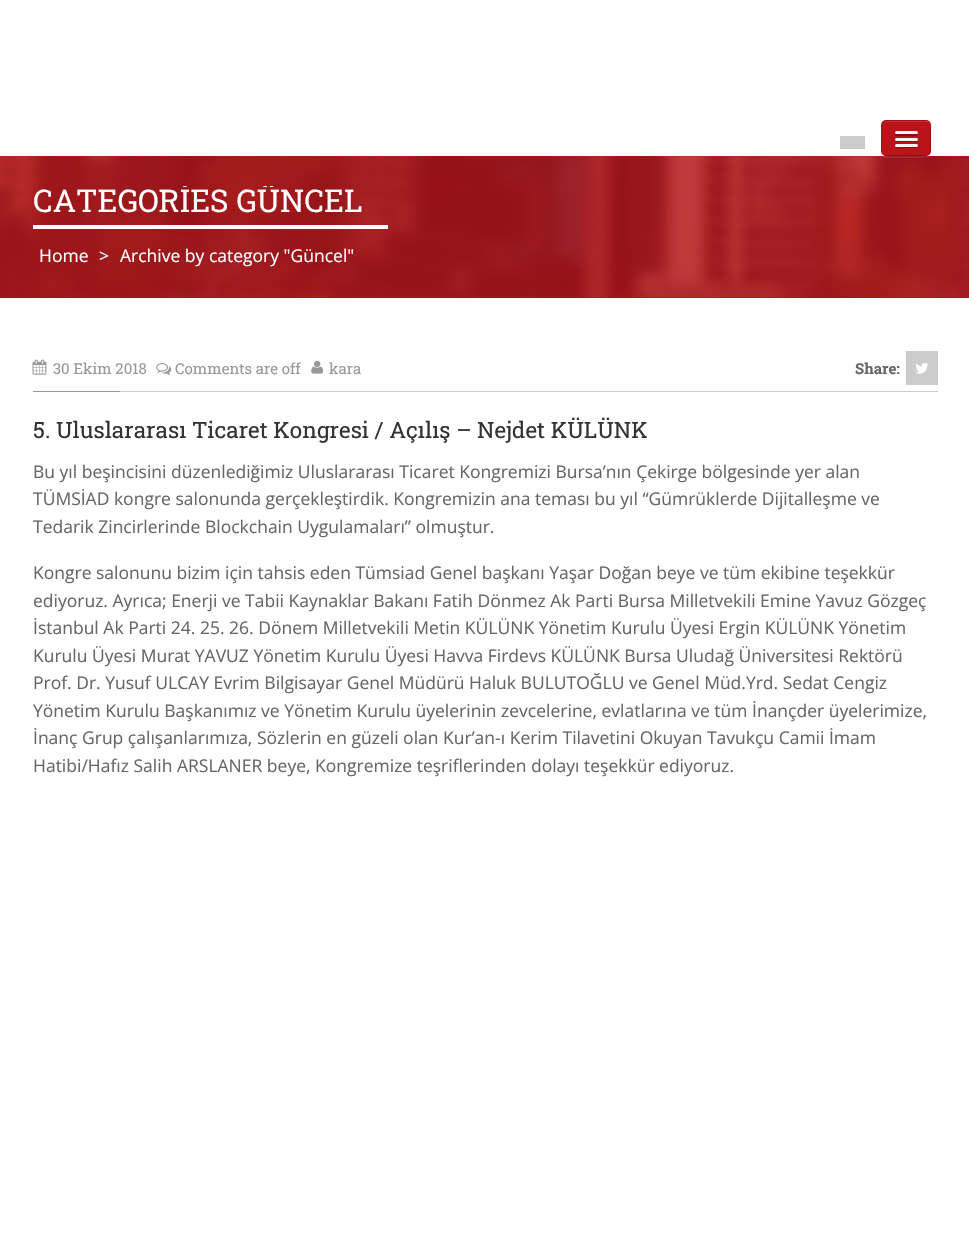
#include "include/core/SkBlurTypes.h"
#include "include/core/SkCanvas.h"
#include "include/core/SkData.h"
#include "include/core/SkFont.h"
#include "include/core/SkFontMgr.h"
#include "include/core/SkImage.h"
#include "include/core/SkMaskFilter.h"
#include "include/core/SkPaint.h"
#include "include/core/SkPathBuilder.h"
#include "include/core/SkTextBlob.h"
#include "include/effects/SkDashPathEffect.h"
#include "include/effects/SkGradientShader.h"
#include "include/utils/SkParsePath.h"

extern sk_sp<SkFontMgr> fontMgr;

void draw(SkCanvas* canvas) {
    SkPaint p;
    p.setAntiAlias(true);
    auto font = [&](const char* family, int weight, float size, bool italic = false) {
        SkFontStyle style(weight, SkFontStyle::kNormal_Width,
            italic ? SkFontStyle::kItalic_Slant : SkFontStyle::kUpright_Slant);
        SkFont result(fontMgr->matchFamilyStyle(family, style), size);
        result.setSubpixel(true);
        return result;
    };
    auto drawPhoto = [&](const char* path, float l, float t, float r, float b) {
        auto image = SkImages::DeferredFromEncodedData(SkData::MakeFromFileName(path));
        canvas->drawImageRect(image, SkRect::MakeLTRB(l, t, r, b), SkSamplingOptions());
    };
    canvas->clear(0xFFFFFFFF);
    p.setColor(0xFFCCCCCC);
    canvas->drawRect(SkRect::MakeLTRB(840, 136, 865, 149), p);
    p.setColor(0xFFBA131A);
    canvas->drawRect(SkRect::MakeLTRB(0, 156, 969, 298), p);
    drawPhoto("media/1.png", 0, 156, 969, 298);
    p.setColor(0x12FFFFFF);
    canvas->drawPath(SkPathBuilder().moveTo(881, 124).lineTo(881, 140).cubicTo(881, 143, 880, 154, 882, 157).lineTo(885, 158).lineTo(927, 158).cubicTo(929, 158, 930, 156, 931, 155).lineTo(931, 153).cubicTo(930, 155, 928, 156, 926, 156).lineTo(886, 156).cubicTo(883, 156, 881, 154, 881, 151).close().detach(), p);
    p.setColor(0xFFBA131A);
    canvas->drawRoundRect(SkRect::MakeLTRB(881, 120, 931, 156), 5, 5, p);
    p.setColor(0xFFC12B31);
    canvas->drawPath(SkPathBuilder().moveTo(886, 122).lineTo(926, 122).cubicTo(928, 122, 930, 124, 930, 126).lineTo(930, 125).cubicTo(930, 123, 928, 121, 926, 121).lineTo(887, 121).cubicTo(886, 121, 884, 122, 884, 123).close().detach(), p);
    p.setStyle(SkPaint::kStroke_Style);
    p.setStrokeWidth(1.2f);
    p.setColor(0x40000000);
    canvas->drawPath(SkPathBuilder().moveTo(929.5f, 154.5f).cubicTo(928.5f, 155, 927.5f, 155.5f, 926, 155.5f).lineTo(886, 155.5f).cubicTo(885, 155.5f, 884, 155, 883, 154.5f).detach(), p);
    p.setColor(0x1A000000);
    canvas->drawPath(SkPathBuilder().moveTo(883, 154.5f).cubicTo(880.5f, 151.5f, 882, 141.5f, 882, 138).lineTo(882, 129.5f).cubicTo(882, 126, 881, 121.5f, 885.5f, 120.5f).lineTo(927, 120.5f).cubicTo(931.5f, 121.5f, 930.5f, 126, 930.5f, 129.5f).lineTo(930.5f, 138).cubicTo(930.5f, 141.5f, 932, 151.5f, 929.5f, 154.5f).detach(), p);
    p.setStyle(SkPaint::kFill_Style);
    p.setColor(0xFF8C0E14);
    canvas->drawPath(SkPathBuilder().moveTo(895.5f, 133.5f).lineTo(895, 135).cubicTo(895.5f, 137, 899, 136, 900, 136).lineTo(903, 136).cubicTo(905, 136, 916.5f, 136.5f, 917.5f, 135.5f).cubicTo(918, 135, 918, 134, 917.5f, 133).lineTo(916.5f, 133.5f).cubicTo(914.5f, 134, 896, 134, 895.5f, 133.5f).close().detach(), p);
    p.setColor(0xFFF5F5F5);
    canvas->drawRoundRect(SkRect::MakeLTRB(895, 131, 918, 134), 1.5f, 1.5f, p);
    p.setColor(0xFF8C0E14);
    canvas->drawPath(SkPathBuilder().moveTo(895.5f, 139.5f).lineTo(895, 141).cubicTo(895.5f, 143, 899, 142, 900, 142).lineTo(913, 142).cubicTo(914.5f, 142, 918, 143, 918, 140.5f).lineTo(917.5f, 139.5f).lineTo(916.5f, 140).cubicTo(914.5f, 140.5f, 896, 140.5f, 895.5f, 139.5f).close().detach(), p);
    p.setColor(0xFFF5F5F5);
    canvas->drawRoundRect(SkRect::MakeLTRB(895, 138, 918, 141), 1.5f, 1.5f, p);
    p.setColor(0xFF8C0E14);
    canvas->drawPath(SkPathBuilder().moveTo(895, 145.5f).cubicTo(893.5f, 148.5f, 899.5f, 148, 900, 148).lineTo(913, 148).cubicTo(914, 148, 917.5f, 149, 918, 147).cubicTo(918, 146.5f, 918, 145.5f, 917.5f, 145.5f).lineTo(916.5f, 146).lineTo(896, 146).close().detach(), p);
    p.setColor(0xFFF5F5F5);
    canvas->drawRoundRect(SkRect::MakeLTRB(895, 144, 918, 147), 1.5f, 1.5f, p);
    p.setColor(0xFFFFFFFF);
    canvas->drawRect(SkRect::MakeLTRB(33, 225, 388, 229), p);
    canvas->save();
    canvas->clipRect(SkRect::MakeLTRB(33, 186, 388, 225));
    auto font1 = font("Roboto Slab", 400, 31.25f);
    canvas->drawString("CATEGORİES GÜNCEL", 33, 212, font1, p);
    canvas->restore();
    auto font2 = font("Open Sans", 400, 17.5f);
    {
        const struct { const char* s; float x, y; } items[] = {
            {"Home", 39, 262},
            {">", 99, 262},
            {"Archive by category \"Güncel\"", 120, 262},
        };
        for (auto [s, x, y] : items) {
            canvas->drawString(s, x, y, font2, p);
        }
    }
    p.setColor(0xFFCCCCCC);
    canvas->drawRect(SkRect::MakeLTRB(120, 391, 938, 392), p);
    drawPhoto("media/2.png", 32, 359, 47, 375);
    auto font3 = font("Roboto Slab", 400, 15);
    p.setColor(0xFF999999);
    canvas->drawString("30 Ekim 2018", 53, 374, font3, p);
    drawPhoto("media/3.png", 156, 363, 172, 375);
    canvas->drawString("Comments are off", 175, 374, font3, p);
    drawPhoto("media/4.png", 311, 360, 323, 374);
    canvas->drawString("kara", 329, 374, font3, p);
    auto font4 = font("Roboto Slab", 700, 15);
    p.setColor(0xFF666666);
    canvas->drawString("Share:", 855, 374, font4, p);
    p.setColor(0xFFCCCCCC);
    canvas->drawRect(SkRect::MakeLTRB(906, 351, 938, 385), p);
    drawPhoto("media/5.png", 915, 363, 929, 374);
    p.setColor(0xFF999999);
    canvas->drawRect(SkRect::MakeLTRB(33, 391, 120, 392), p);
    auto font5 = font("Roboto Slab", 400, 22.5f);
    p.setColor(0xFF333333);
    canvas->drawString("5. Uluslararası Ticaret Kongresi / Açılış – Nejdet KÜLÜNK", 33, 438, font5, p);
    p.setColor(0xFF666666);
    {
        const struct { const char* s; float x, y; } items[] = {
            {"Bu yıl beşincisini düzenlediğimiz Uluslararası Ticaret Kongremizi Bursa’nın Çekirge bölgesinde yer alan", 33, 478},
            {"TÜMSİAD kongre salonunda gerçekleştirdik. Kongremizin ana teması bu yıl “Gümrüklerde Dijitalleşme ve", 33, 505},
            {"Tedarik Zincirlerinde Blockchain Uygulamaları” olmuştur.", 33, 533},
            {"Kongre salonunu bizim için tahsis eden Tümsiad Genel başkanı Yaşar Doğan beye ve tüm ekibine teşekkür", 33, 579},
            {"ediyoruz. Ayrıca; Enerji ve Tabii Kaynaklar Bakanı Fatih Dönmez Ak Parti Bursa Milletvekili Emine Yavuz Gözgeç", 33, 607},
            {"İstanbul Ak Parti 24. 25. 26. Dönem Milletvekili Metin KÜLÜNK Yönetim Kurulu Üyesi Ergin KÜLÜNK Yönetim", 33, 634},
            {"Kurulu Üyesi Murat YAVUZ Yönetim Kurulu Üyesi Havva Firdevs KÜLÜNK Bursa Uludağ Üniversitesi Rektörü", 33, 662},
            {"Prof. Dr. Yusuf ULCAY Evrim Bilgisayar Genel Müdürü Haluk BULUTOĞLU ve Genel Müd.Yrd. Sedat Cengiz", 33, 689},
            {"Yönetim Kurulu Başkanımız ve Yönetim Kurulu üyelerinin zevcelerine, evlatlarına ve tüm İnançder üyelerimize,", 33, 717},
            {"İnanç Grup çalışanlarımıza, Sözlerin en güzeli olan Kur’an-ı Kerim Tilavetini Okuyan Tavukçu Camii İmam", 33, 744},
            {"Hatibi/Hafız Salih ARSLANER beye, Kongremize teşriflerinden dolayı teşekkür ediyoruz.", 33, 772},
        };
        for (auto [s, x, y] : items) {
            canvas->drawString(s, x, y, font2, p);
        }
    }
}
